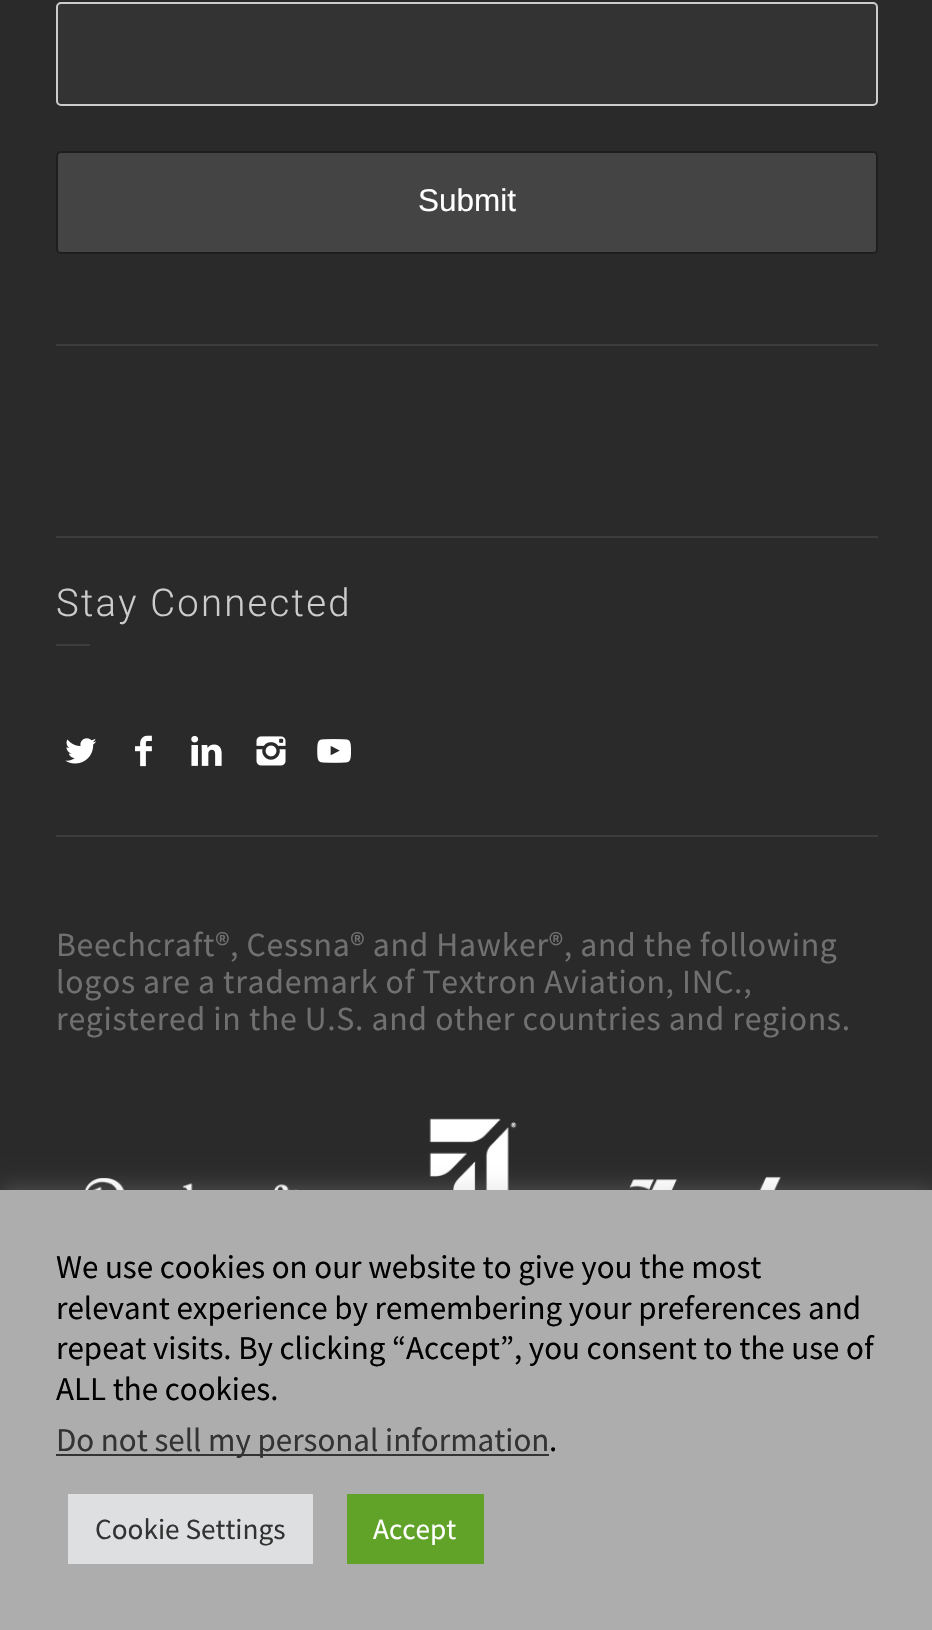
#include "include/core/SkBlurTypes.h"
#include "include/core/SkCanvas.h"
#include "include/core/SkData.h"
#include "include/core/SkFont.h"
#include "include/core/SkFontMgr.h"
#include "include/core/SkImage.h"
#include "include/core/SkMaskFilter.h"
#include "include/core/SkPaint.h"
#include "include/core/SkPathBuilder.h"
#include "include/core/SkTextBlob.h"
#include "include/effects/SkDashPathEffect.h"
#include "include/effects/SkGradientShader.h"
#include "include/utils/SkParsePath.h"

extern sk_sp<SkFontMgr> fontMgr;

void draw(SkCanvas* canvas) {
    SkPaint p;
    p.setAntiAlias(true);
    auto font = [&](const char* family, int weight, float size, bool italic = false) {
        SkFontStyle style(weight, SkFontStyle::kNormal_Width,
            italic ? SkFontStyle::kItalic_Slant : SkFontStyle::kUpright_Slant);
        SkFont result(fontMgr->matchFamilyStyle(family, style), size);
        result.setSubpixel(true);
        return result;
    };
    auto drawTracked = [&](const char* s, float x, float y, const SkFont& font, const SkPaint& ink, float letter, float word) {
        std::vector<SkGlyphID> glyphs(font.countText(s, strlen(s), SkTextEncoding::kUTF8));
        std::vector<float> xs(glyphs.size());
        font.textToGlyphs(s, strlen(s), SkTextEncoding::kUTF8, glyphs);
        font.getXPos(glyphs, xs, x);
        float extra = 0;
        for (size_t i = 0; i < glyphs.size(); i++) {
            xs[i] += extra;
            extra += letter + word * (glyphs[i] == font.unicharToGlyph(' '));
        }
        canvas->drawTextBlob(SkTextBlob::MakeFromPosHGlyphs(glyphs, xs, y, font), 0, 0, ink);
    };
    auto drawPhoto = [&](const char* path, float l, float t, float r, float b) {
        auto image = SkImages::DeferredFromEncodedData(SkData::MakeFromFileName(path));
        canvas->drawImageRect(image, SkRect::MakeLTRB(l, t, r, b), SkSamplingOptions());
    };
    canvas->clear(0xFF2A2A2A);
    p.setColor(0xFF333333);
    canvas->drawRoundRect(SkRect::MakeLTRB(57, 3, 877, 105), 4, 4, p);
    p.setStyle(SkPaint::kStroke_Style);
    p.setStrokeWidth(2);
    p.setColor(0xFFCCCCCC);
    canvas->drawRoundRect(SkRect::MakeLTRB(57, 3, 877, 105), 4, 4, p);
    p.setStyle(SkPaint::kFill_Style);
    p.setColor(0xFF444444);
    canvas->drawRoundRect(SkRect::MakeLTRB(57, 152, 877, 253), 4, 4, p);
    p.setStyle(SkPaint::kStroke_Style);
    p.setColor(0xFF1E1E1E);
    canvas->drawRoundRect(SkRect::MakeLTRB(57, 152, 877, 253), 4, 4, p);
    auto font1 = font("Liberation Sans", 400, 31.5f);
    p.setStyle(SkPaint::kFill_Style);
    p.setColor(0xFFFFFFFF);
    canvas->drawString("Submit", 418, 211, font1, p);
    p.setColor(0xFF3C3C3C);
    canvas->drawRect(SkRect::MakeLTRB(56, 344, 878, 346), p);
    canvas->drawRect(SkRect::MakeLTRB(56, 536, 878, 538), p);
    auto font2 = font("Roboto", 300, 38.25f);
    p.setColor(0xFFCCCCCC);
    drawTracked("Stay Connected", 56, 616, font2, p, 2.25f, 0);
    p.setColor(0xFF3C3C3C);
    canvas->drawRect(SkRect::MakeLTRB(56, 644, 90, 646), p);
    drawPhoto("media/1.png", 65, 738, 97, 764);
    drawPhoto("media/2.png", 135, 735, 152, 767);
    drawPhoto("media/3.png", 191, 736, 222, 766);
    drawPhoto("media/4.png", 256, 736, 286, 766);
    drawPhoto("media/5.png", 317, 739, 351, 763);
    canvas->drawRect(SkRect::MakeLTRB(56, 835, 878, 837), p);
    auto font3 = font("Source Sans Pro", 400, 33.75f);
    p.setColor(0xFF707070);
    {
        const struct { const char* s; float x, y; } items[] = {
            {"Beechcraft®, Cessna® and Hawker®, and the following", 56, 956},
            {"logos are a trademark of Textron Aviation, INC.,", 56, 993},
            {"registered in the U.S. and other countries and regions.", 56, 1030},
        };
        for (auto [s, x, y] : items) {
            drawTracked(s, x, y, font3, p, 0.67f, 0);
        }
    }
    drawPhoto("media/6.png", 84, 1178, 298, 1190);
    drawPhoto("media/7.png", 429, 1118, 517, 1190);
    drawPhoto("media/8.png", 629, 1176, 781, 1190);
    p.setColor(0x4DACABAB);
    p.setMaskFilter(SkMaskFilter::MakeBlur(kNormal_SkBlurStyle, 11));
    canvas->drawRect(SkRect::MakeLTRB(0, 1188, 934, 1629), p);
    p.setMaskFilter(nullptr);
    p.setColor(0xFFADADAD);
    canvas->drawRect(SkRect::MakeLTRB(0, 1190, 932, 1630), p);
    auto font4 = font("Source Sans Pro", 400, 33);
    p.setColor(0xFF000000);
    {
        const struct { const char* s; float x, y; } items[] = {
            {"We use cookies on our website to give you the most", 56, 1278},
            {"relevant experience by remembering your preferences and", 56, 1319},
            {"repeat visits. By clicking “Accept”, you consent to the use of", 56, 1359},
            {"ALL the cookies.", 56, 1400},
        };
        for (auto [s, x, y] : items) {
            canvas->drawString(s, x, y, font4, p);
        }
    }
    p.setColor(0xFF333333);
    canvas->drawRect(SkRect::MakeLTRB(56, 1454, 549, 1456), p);
    canvas->drawString("Do not sell my personal information", 56, 1451, font4, p);
    p.setColor(0xFF000000);
    canvas->drawString(".", 549, 1451, font4, p);
    p.setColor(0xFFDEDFE0);
    canvas->drawRect(SkRect::MakeLTRB(68, 1494, 313, 1564), p);
    auto font5 = font("Source Sans Pro", 400, 29.25f);
    p.setColor(0xFF333333);
    canvas->drawString("Cookie Settings", 95, 1539, font5, p);
    p.setColor(0xFF61A229);
    canvas->drawRect(SkRect::MakeLTRB(347, 1494, 484, 1564), p);
    p.setColor(0xFFFFFFFF);
    canvas->drawString("Accept", 373, 1539, font5, p);
}
